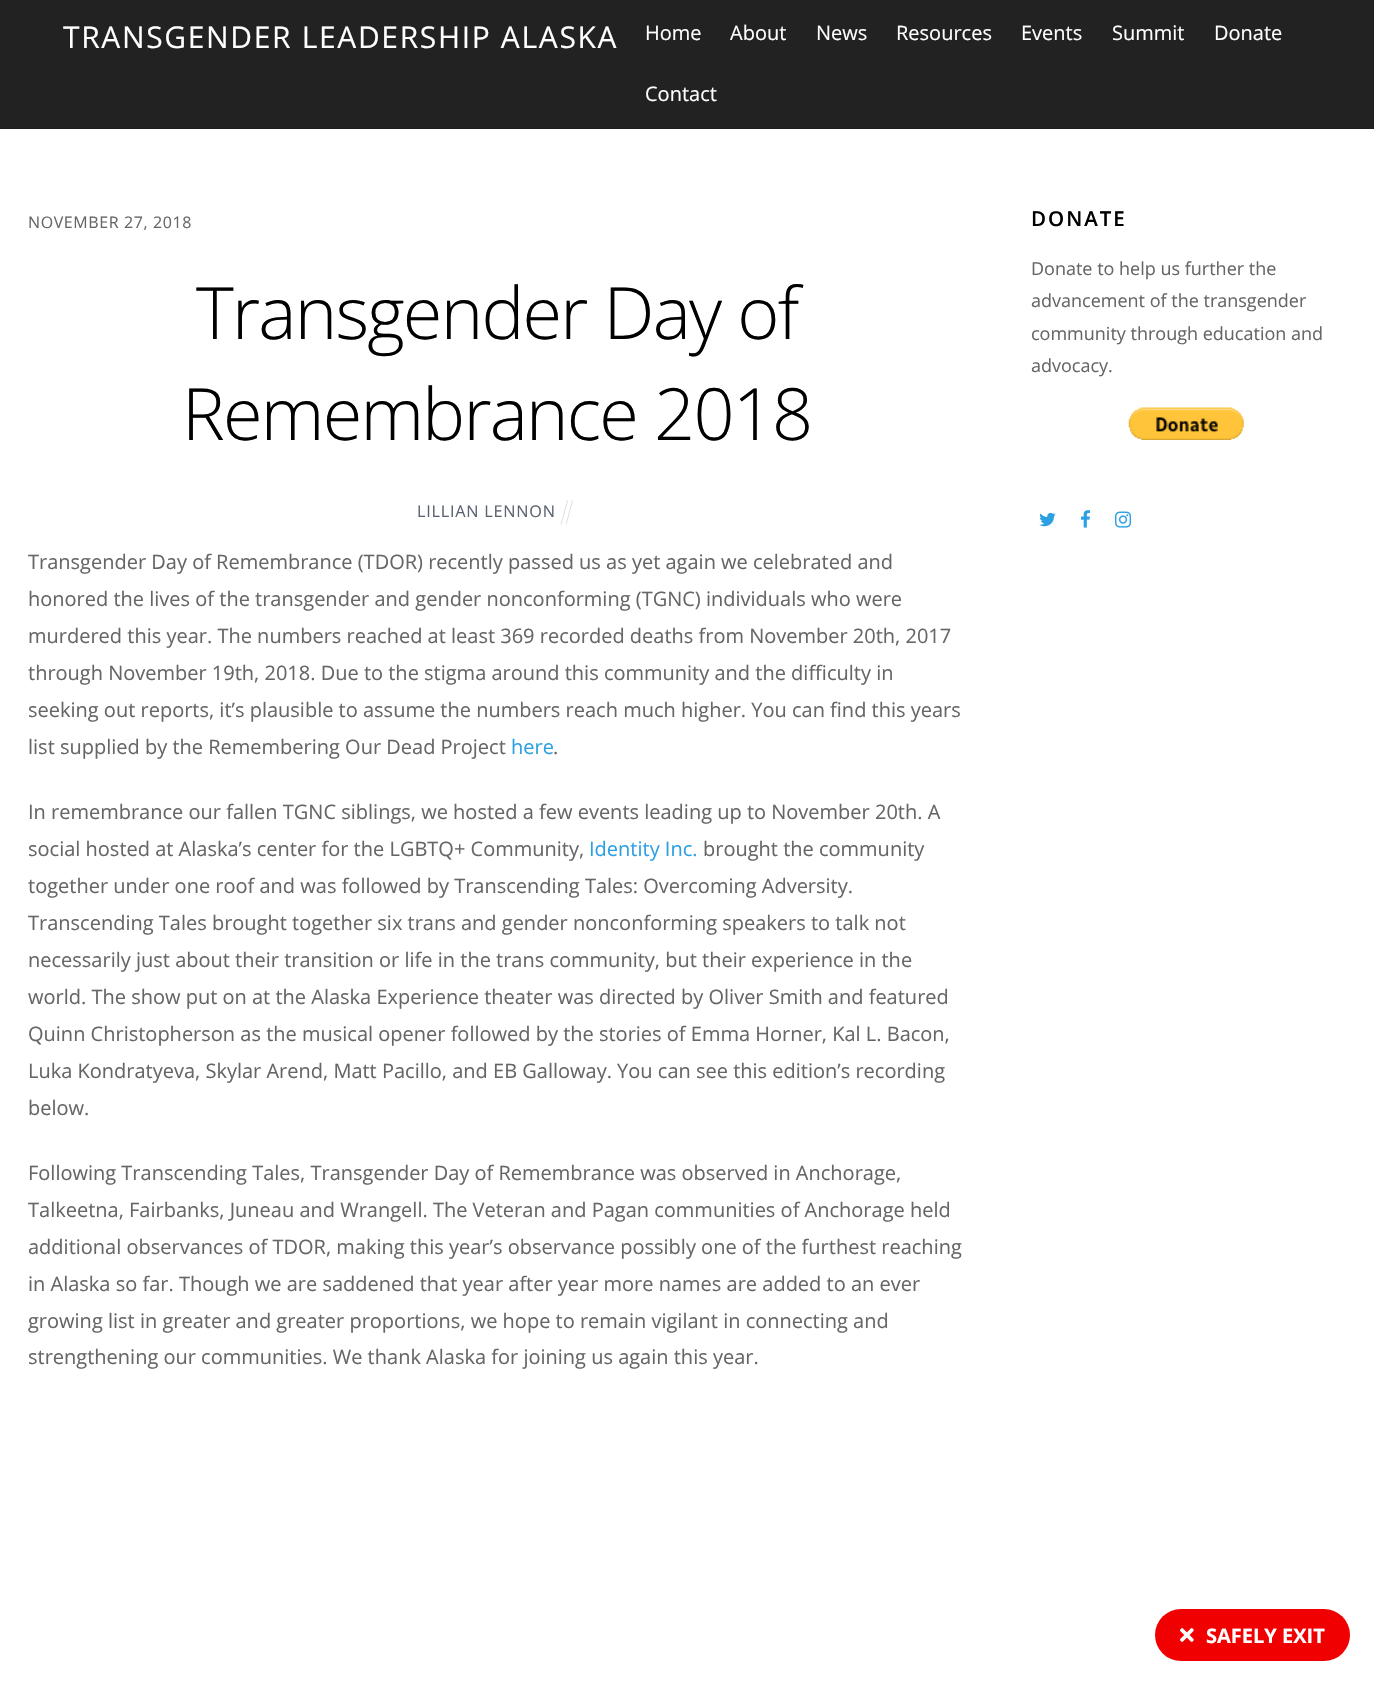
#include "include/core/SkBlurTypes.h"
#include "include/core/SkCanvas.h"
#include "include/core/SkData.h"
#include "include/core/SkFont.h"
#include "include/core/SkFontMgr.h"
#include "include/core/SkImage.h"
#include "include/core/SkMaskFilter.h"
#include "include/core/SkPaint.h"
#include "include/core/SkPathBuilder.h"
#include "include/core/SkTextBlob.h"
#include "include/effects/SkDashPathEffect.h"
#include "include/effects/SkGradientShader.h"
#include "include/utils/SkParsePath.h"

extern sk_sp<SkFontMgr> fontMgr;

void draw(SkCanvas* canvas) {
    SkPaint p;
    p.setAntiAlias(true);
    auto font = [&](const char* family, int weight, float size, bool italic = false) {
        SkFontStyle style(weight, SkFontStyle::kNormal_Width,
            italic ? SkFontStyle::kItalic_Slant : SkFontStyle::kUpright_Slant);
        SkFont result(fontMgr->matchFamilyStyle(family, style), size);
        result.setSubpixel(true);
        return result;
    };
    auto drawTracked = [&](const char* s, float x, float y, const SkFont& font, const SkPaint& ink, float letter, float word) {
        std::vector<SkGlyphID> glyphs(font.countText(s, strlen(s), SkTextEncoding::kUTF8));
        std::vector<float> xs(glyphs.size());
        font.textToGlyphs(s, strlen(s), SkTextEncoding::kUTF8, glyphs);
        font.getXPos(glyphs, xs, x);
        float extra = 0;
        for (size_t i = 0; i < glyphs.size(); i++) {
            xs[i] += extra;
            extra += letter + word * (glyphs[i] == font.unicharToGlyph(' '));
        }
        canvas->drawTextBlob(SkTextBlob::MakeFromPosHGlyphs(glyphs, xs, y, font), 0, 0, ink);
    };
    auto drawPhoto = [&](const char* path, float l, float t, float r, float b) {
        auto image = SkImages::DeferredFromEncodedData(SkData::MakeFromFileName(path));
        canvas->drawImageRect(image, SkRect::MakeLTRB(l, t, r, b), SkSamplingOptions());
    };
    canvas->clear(0xFFFFFFFF);
    p.setColor(0xFF222222);
    canvas->drawRect(SkRect::MakeLTRB(0, 0, 1374, 128), p);
    p.setColor(0xFF1F1F1F);
    canvas->drawRect(SkRect::MakeLTRB(0, 128, 1374, 129), p);
    auto font1 = font("Open Sans", 400, 30);
    p.setColor(0xFFFFFFFF);
    drawTracked("TRANSGENDER LEADERSHIP ALASKA", 63, 48, font1, p, 1.65f, 0);
    auto font2 = font("Open Sans", 400, 20);
    {
        const struct { const char* s; float x, y; } items[] = {
            {"Home", 645, 40},
            {"About", 730, 40},
            {"News", 816, 40},
            {"Resources", 896, 40},
            {"Events", 1021, 40},
            {"Summit", 1112, 40},
            {"Donate", 1214, 40},
            {"Contact", 645, 101},
        };
        for (auto [s, x, y] : items) {
            canvas->drawString(s, x, y, font2, p);
        }
    }
    auto font3 = font("Open Sans", 400, 16);
    p.setColor(0xFF666666);
    drawTracked("NOVEMBER 27, 2018", 28, 228, font3, p, 0.6f, 0);
    auto font4 = font("Open Sans", 300, 72);
    p.setColor(0xFF000000);
    drawTracked("Transgender Day of", 196, 339, font4, p, -1.75f, 0);
    drawTracked("Remembrance 2018", 182, 440, font4, p, -1.75f, 0);
    auto font5 = font("Open Sans", 400, 16.25f);
    p.setColor(0xFF5B6270);
    drawTracked("LILLIAN LENNON", 417, 517, font5, p, 0.75f, 0);
    p.setColor(0xFFE0E0E0);
    canvas->drawPath(SkPathBuilder().moveTo(572, 500.5f).lineTo(573, 500.5f).lineTo(566.5f, 524.5f).lineTo(565.5f, 524.5f).close().detach(), p);
    canvas->drawPath(SkPathBuilder().moveTo(567, 500.5f).lineTo(568, 500.5f).lineTo(561.5f, 524.5f).lineTo(560.5f, 524.5f).close().detach(), p);
    p.setColor(0xFF666666);
    {
        const struct { const char* s; float x, y; } items[] = {
            {"Transgender Day of Remembrance (TDOR) recently passed us as yet again we celebrated and", 28, 569},
            {"honored the lives of the transgender and gender nonconforming (TGNC) individuals who were", 28, 606},
            {"murdered this year. The numbers reached at least 369 recorded deaths from November 20th, 2017", 28, 643},
            {"through November 19th, 2018. Due to the stigma around this community and the difficulty in", 28, 680},
            {"seeking out reports, it’s plausible to assume the numbers reach much higher. You can find this years", 28, 717},
            {"list supplied by the Remembering Our Dead Project", 28, 754},
        };
        for (auto [s, x, y] : items) {
            canvas->drawString(s, x, y, font2, p);
        }
    }
    p.setColor(0xFF2DA0E3);
    canvas->drawString("here", 511, 754, font2, p);
    p.setColor(0xFF666666);
    {
        const struct { const char* s; float x, y; } items[] = {
            {".", 553, 754},
            {"In remembrance our fallen TGNC siblings, we hosted a few events leading up to November 20th. A", 28, 819},
            {"social hosted at Alaska’s center for the LGBTQ+ Community,", 28, 856},
        };
        for (auto [s, x, y] : items) {
            canvas->drawString(s, x, y, font2, p);
        }
    }
    p.setColor(0xFF2DA0E3);
    canvas->drawString("Identity Inc.", 589, 856, font2, p);
    p.setColor(0xFF666666);
    {
        const struct { const char* s; float x, y; } items[] = {
            {"brought the community", 703, 856},
            {"together under one roof and was followed by Transcending Tales: Overcoming Adversity.", 28, 893},
            {"Transcending Tales brought together six trans and gender nonconforming speakers to talk not", 28, 930},
            {"necessarily just about their transition or life in the trans community, but their experience in the", 28, 967},
            {"world. The show put on at the Alaska Experience theater was directed by Oliver Smith and featured", 28, 1004},
            {"Quinn Christopherson as the musical opener followed by the stories of Emma Horner, Kal L. Bacon,", 28, 1041},
            {"Luka Kondratyeva, Skylar Arend, Matt Pacillo, and EB Galloway. You can see this edition’s recording", 28, 1078},
            {"below.", 28, 1115},
            {"Following Transcending Tales, Transgender Day of Remembrance was observed in Anchorage,", 28, 1180},
            {"Talkeetna, Fairbanks, Juneau and Wrangell. The Veteran and Pagan communities of Anchorage held", 28, 1217},
            {"additional observances of TDOR, making this year’s observance possibly one of the furthest reaching", 28, 1254},
            {"in Alaska so far. Though we are saddened that year after year more names are added to an ever", 28, 1291},
            {"growing list in greater and greater proportions, we hope to remain vigilant in connecting and", 28, 1328},
            {"strengthening our communities. We thank Alaska for joining us again this year.", 28, 1364},
        };
        for (auto [s, x, y] : items) {
            canvas->drawString(s, x, y, font2, p);
        }
    }
    auto font6 = font("Open Sans", 600, 20.5f);
    p.setColor(0xFF000000);
    drawTracked("DONATE", 1031, 226, font6, p, 2, 0);
    auto font7 = font("Open Sans", 400, 18);
    p.setColor(0xFF666666);
    {
        const struct { const char* s; float x, y; } items[] = {
            {"Donate to help us further the", 1031, 275},
            {"advancement of the transgender", 1031, 307},
            {"community through education and", 1031, 340},
            {"advocacy.", 1031, 372},
        };
        for (auto [s, x, y] : items) {
            canvas->drawString(s, x, y, font7, p);
        }
    }
    drawPhoto("media/1.png", 1128, 407, 1244, 440);
    drawPhoto("media/2.png", 1039, 512, 1056, 527);
    drawPhoto("media/3.png", 1081, 510, 1091, 528);
    drawPhoto("media/4.png", 1115, 511, 1132, 528);
    p.setColor(0xFFF00000);
    canvas->drawRoundRect(SkRect::MakeLTRB(1155, 1609, 1350, 1661), 26, 26, p);
    drawPhoto("media/5.png", 1180, 1628, 1194, 1642);
    auto font8 = font("Open Sans", 700, 20);
    p.setColor(0xFFFFFFFF);
    canvas->drawString("SAFELY EXIT", 1206, 1643, font8, p);
}
